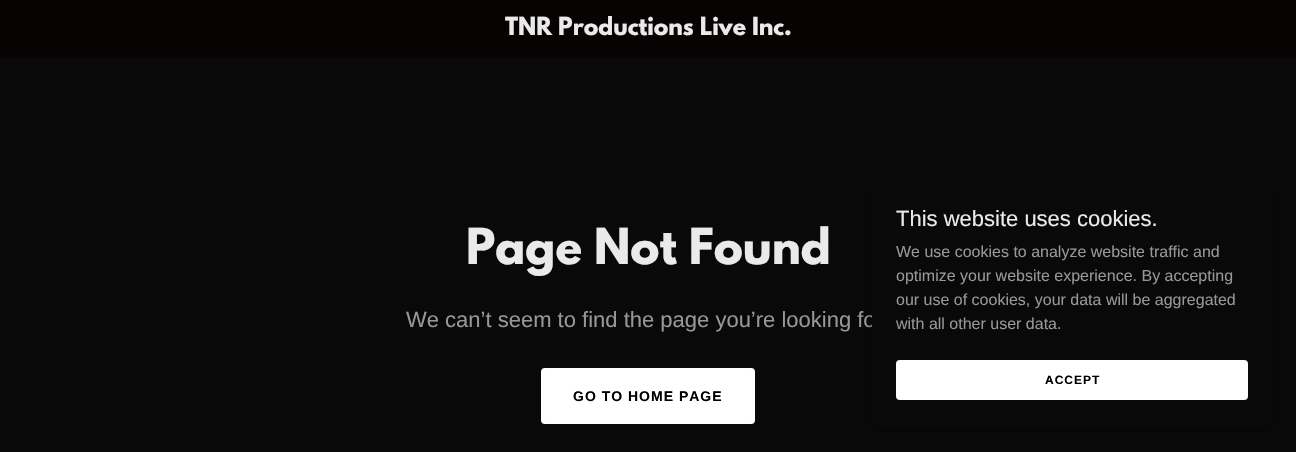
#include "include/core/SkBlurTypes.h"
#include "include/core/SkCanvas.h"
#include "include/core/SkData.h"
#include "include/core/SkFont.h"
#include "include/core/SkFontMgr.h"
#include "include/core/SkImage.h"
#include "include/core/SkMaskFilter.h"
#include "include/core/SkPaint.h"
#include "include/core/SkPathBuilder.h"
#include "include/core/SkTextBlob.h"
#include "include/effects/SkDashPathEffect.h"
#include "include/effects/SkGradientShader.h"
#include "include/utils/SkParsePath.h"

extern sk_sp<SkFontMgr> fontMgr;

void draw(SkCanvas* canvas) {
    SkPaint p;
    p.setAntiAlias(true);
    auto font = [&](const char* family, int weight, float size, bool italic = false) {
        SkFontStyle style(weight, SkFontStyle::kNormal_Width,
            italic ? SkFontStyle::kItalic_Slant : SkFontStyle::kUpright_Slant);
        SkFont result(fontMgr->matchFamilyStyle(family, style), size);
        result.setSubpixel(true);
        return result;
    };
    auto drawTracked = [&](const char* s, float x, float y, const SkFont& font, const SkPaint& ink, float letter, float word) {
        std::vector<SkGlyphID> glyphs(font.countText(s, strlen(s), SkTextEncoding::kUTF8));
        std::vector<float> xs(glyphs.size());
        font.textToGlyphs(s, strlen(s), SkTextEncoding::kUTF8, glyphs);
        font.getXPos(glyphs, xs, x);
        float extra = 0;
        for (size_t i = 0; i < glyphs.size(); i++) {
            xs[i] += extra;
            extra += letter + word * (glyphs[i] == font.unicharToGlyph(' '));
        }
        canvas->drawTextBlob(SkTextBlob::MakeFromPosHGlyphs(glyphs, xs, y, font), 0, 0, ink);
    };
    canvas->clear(0xFF0A0909);
    p.setColor(0xFF080303);
    canvas->drawRect(SkRect::MakeLTRB(0, 0, 1296, 58), p);
    auto font1 = font("League Spartan", 700, 22);
    p.setColor(0xFFEAEAEA);
    canvas->drawString("TNR Productions Live Inc.", 505, 35, font1, p);
    auto font2 = font("League Spartan", 700, 44);
    canvas->drawString("Page Not Found", 466, 264, font2, p);
    auto font3 = font("Liberation Sans", 400, 22);
    p.setColor(0xFF989797);
    canvas->drawString("We can’t seem to find the page you’re looking fo", 406, 327, font3, p);
    p.setColor(0xFFFFFFFF);
    canvas->drawRoundRect(SkRect::MakeLTRB(541, 368, 755, 424), 4, 4, p);
    auto font4 = font("Liberation Sans", 700, 14);
    p.setColor(0xFF000000);
    drawTracked("GO TO HOME PAGE", 573, 401, font4, p, 1, 0);
    p.setColor(0x4D000000);
    p.setMaskFilter(SkMaskFilter::MakeBlur(kNormal_SkBlurStyle, 3));
    canvas->drawRoundRect(SkRect::MakeLTRB(872, 183, 1272, 430), 7, 7, p);
    p.setMaskFilter(nullptr);
    p.setColor(0xFF0A0909);
    canvas->drawRoundRect(SkRect::MakeLTRB(872, 181, 1272, 428), 7, 7, p);
    p.setColor(0xFFEAEAEA);
    canvas->drawString("This website uses cookies.", 896, 226, font3, p);
    auto font5 = font("Liberation Sans", 400, 16);
    p.setColor(0xFF989797);
    {
        const struct { const char* s; float x, y; } items[] = {
            {"We use cookies to analyze website traffic and", 896, 257},
            {"optimize your website experience. By accepting", 896, 281},
            {"our use of cookies, your data will be aggregated", 896, 305},
            {"with all other user data.", 896, 329},
        };
        for (auto [s, x, y] : items) {
            canvas->drawString(s, x, y, font5, p);
        }
    }
    p.setColor(0xFFFFFFFF);
    canvas->drawRoundRect(SkRect::MakeLTRB(896, 360, 1248, 400), 4, 4, p);
    auto font6 = font("Liberation Sans", 700, 12);
    p.setColor(0xFF000000);
    drawTracked("ACCEPT", 1045, 384, font6, p, 1, 0);
}
